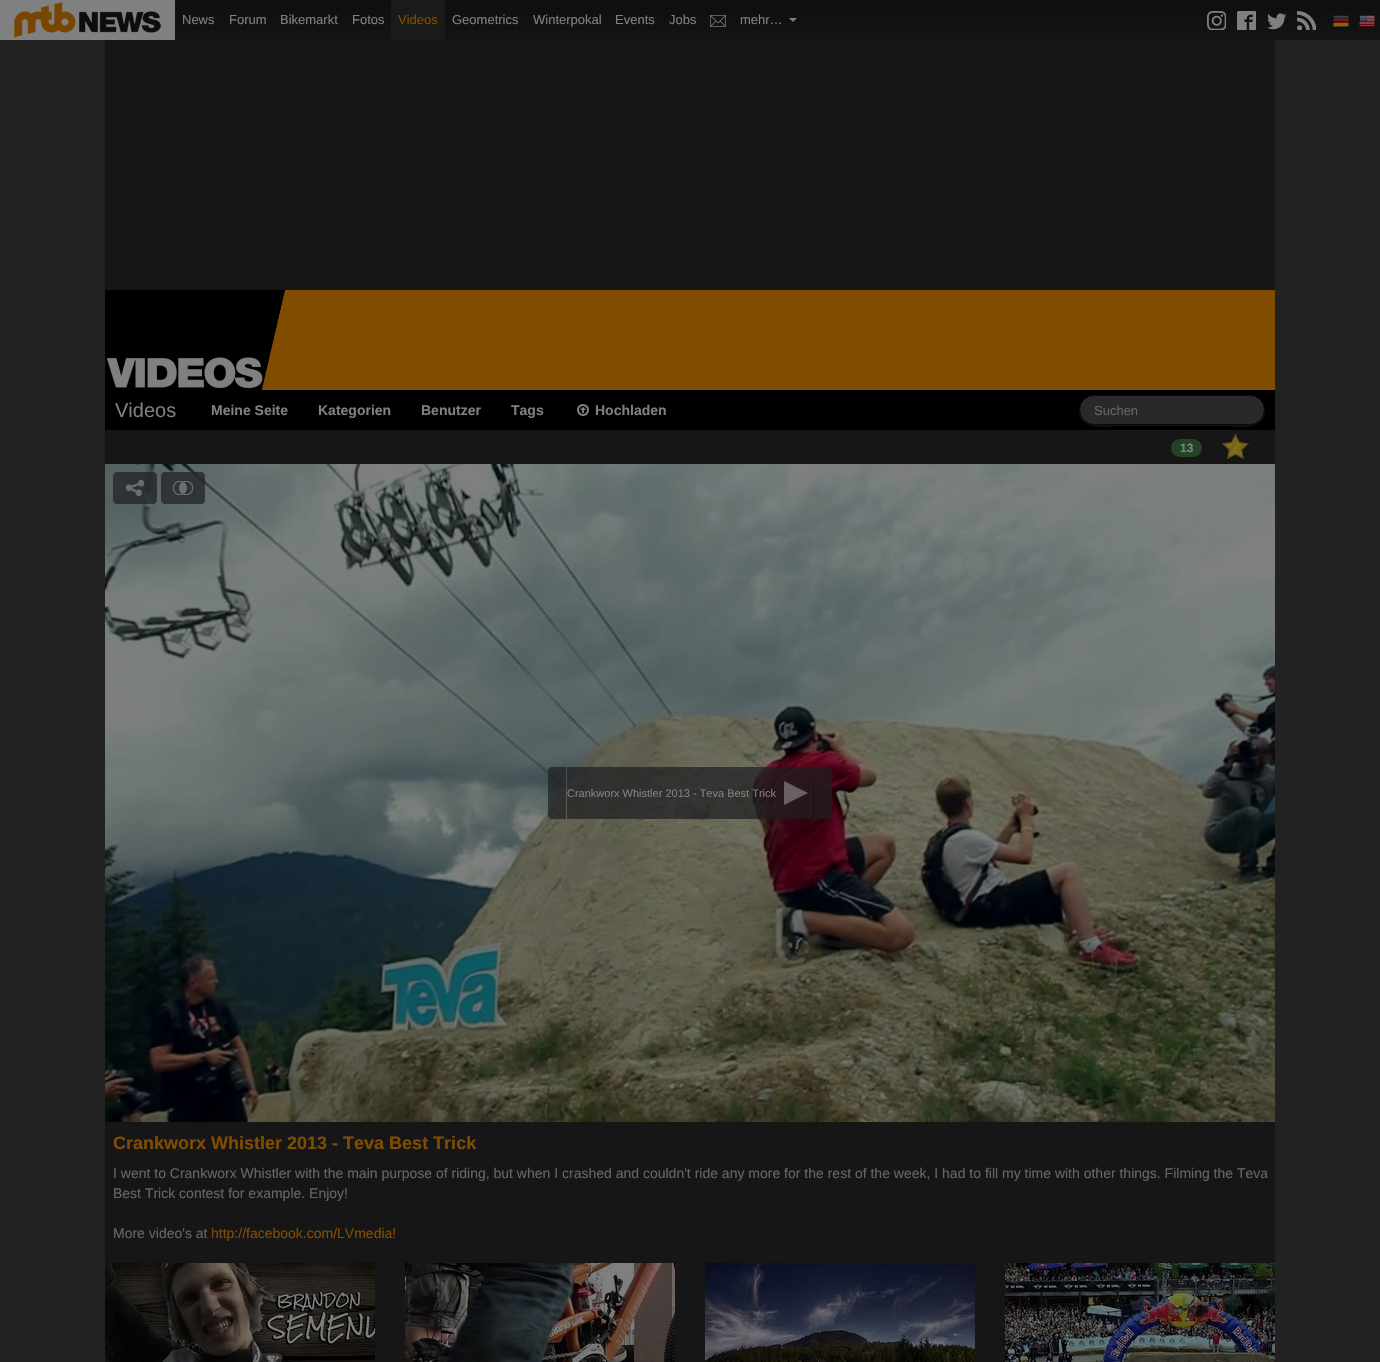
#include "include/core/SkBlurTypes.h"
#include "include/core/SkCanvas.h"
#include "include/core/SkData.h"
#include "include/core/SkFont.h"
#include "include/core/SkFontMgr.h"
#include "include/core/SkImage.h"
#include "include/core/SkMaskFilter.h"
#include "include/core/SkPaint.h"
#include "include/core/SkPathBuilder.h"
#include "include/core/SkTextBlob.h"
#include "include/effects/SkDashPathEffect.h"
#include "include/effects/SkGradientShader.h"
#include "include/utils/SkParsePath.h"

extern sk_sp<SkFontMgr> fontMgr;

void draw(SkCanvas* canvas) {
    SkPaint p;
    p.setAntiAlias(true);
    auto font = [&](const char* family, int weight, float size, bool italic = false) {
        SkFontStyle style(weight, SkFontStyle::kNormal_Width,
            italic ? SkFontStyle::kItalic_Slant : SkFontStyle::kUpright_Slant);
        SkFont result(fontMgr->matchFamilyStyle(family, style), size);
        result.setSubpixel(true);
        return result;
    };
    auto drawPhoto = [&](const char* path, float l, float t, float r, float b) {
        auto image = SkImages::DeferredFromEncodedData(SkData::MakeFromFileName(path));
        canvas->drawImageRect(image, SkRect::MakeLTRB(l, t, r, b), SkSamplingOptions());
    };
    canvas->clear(0xFF222222);
    {
        const SkColor colors[] = {0xFF0E0E0E, 0xFF141414};
        const float stops[] = {0, 1};
        const SkPoint ends[] = {{690, 0}, {690, 40}};
        p.setShader(SkGradientShader::MakeLinear(ends, colors, stops, 2, SkTileMode::kClamp));
        p.setAlpha(255);
    }
    canvas->drawRect(SkRect::MakeLTRB(175, 0, 1380, 39), p);
    p.setShader(nullptr);
    p.setColor(0xFF121212);
    canvas->drawRect(SkRect::MakeLTRB(175, 39, 1380, 40), p);
    p.setColor(0xFF808080);
    canvas->drawRect(SkRect::MakeLTRB(0, 0, 175, 40), p);
    drawPhoto("media/1.png", 14, 2, 161, 38);
    auto font1 = font("Liberation Sans", 400, 13);
    {
        const struct { const char* s; float x, y; } items[] = {
            {"News", 182, 24},
            {"Forum", 229, 24},
            {"Bikemarkt", 280, 24},
            {"Fotos", 352, 24},
        };
        for (auto [s, x, y] : items) {
            canvas->drawString(s, x, y, font1, p);
        }
    }
    p.setColor(0xFF1A1A1A);
    canvas->drawRect(SkRect::MakeLTRB(391, 0, 445, 40), p);
    p.setColor(0xFF804D00);
    canvas->drawString("Videos", 398, 24, font1, p);
    p.setColor(0xFF808080);
    {
        const struct { const char* s; float x, y; } items[] = {
            {"Geometrics", 452, 24},
            {"Winterpokal", 533, 24},
            {"Events", 615, 24},
            {"Jobs", 669, 24},
        };
        for (auto [s, x, y] : items) {
            canvas->drawString(s, x, y, font1, p);
        }
    }
    drawPhoto("media/2.png", 710, 15, 726, 27);
    canvas->drawString("mehr…", 740, 24, font1, p);
    canvas->drawPath(SkPathBuilder().moveTo(789, 18).lineTo(797, 18).lineTo(793, 22).close().detach(), p);
    drawPhoto("media/3.png", 1207, 11, 1226, 30);
    drawPhoto("media/4.png", 1237, 11, 1256, 30);
    drawPhoto("media/5.png", 1267, 13, 1286, 30);
    drawPhoto("media/6.png", 1297, 11, 1316, 30);
    drawPhoto("media/7.png", 1333, 15, 1349, 27);
    drawPhoto("media/8.png", 1359, 15, 1375, 27);
    p.setColor(0xFF161616);
    canvas->drawRect(SkRect::MakeLTRB(105, 40, 1275, 1362), p);
    p.setColor(0xFF804D00);
    canvas->drawRect(SkRect::MakeLTRB(105, 290, 1275, 390), p);
    drawPhoto("media/9.png", 105, 290, 285, 390);
    p.setColor(0xFF000000);
    canvas->drawRect(SkRect::MakeLTRB(105, 390, 1275, 430), p);
    auto font2 = font("Liberation Sans", 400, 20);
    p.setColor(0xFF808080);
    canvas->drawString("Videos", 115, 417, font2, p);
    auto font3 = font("Liberation Sans", 700, 14);
    {
        const struct { const char* s; float x, y; } items[] = {
            {"Meine Seite", 211, 415},
            {"Kategorien", 318, 415},
            {"Benutzer", 421, 415},
            {"Tags", 511, 415},
        };
        for (auto [s, x, y] : items) {
            canvas->drawString(s, x, y, font3, p);
        }
    }
    drawPhoto("media/10.png", 577, 404, 589, 416);
    canvas->drawString("Hochladen", 595, 415, font3, p);
    p.setColor(0xFF131313);
    canvas->drawPath(SkPathBuilder().moveTo(1079, 410).cubicTo(1078, 432, 1109, 426, 1120, 426).lineTo(1224, 426).cubicTo(1235, 426, 1266, 432, 1265, 410).cubicTo(1265, 419, 1258, 425, 1250, 425).lineTo(1094, 425).cubicTo(1086, 425, 1079, 419, 1079, 410).close().detach(), p);
    p.setColor(0xFF292929);
    canvas->drawRoundRect(SkRect::MakeLTRB(1079.5f, 395.5f, 1264.5f, 424.5f), 14.5f, 14.5f, p);
    p.setStyle(SkPaint::kStroke_Style);
    p.setStrokeWidth(1);
    p.setColor(0xFF090909);
    canvas->drawRoundRect(SkRect::MakeLTRB(1079.5f, 395.5f, 1264.5f, 424.5f), 14.5f, 14.5f, p);
    p.setStyle(SkPaint::kFill_Style);
    p.setColor(0xFF666666);
    canvas->drawString("Suchen", 1094, 415, font1, p);
    p.setColor(0xFF234424);
    canvas->drawRoundRect(SkRect::MakeLTRB(1171, 439, 1202, 457), 9, 9, p);
    auto font4 = font("Liberation Sans", 700, 12);
    p.setColor(0xFF808080);
    canvas->drawString("13", 1180, 452, font4, p);
    drawPhoto("media/11.png", 1222, 433, 1249, 460);
    drawPhoto("media/16.png", 105, 464, 1275, 1122);
    drawPhoto("media/12.png", 113, 472, 157, 504);
    drawPhoto("media/13.png", 126, 480, 144, 496);
    drawPhoto("media/14.png", 161, 472, 205, 504);
    drawPhoto("media/15.png", 173, 481, 193, 495);
    drawPhoto("media/17.png", 548, 767, 832, 819);
    auto font5 = font("Liberation Sans", 400, 11);
    canvas->drawString("Crankworx Whistler 2013 - Teva Best Trick", 567, 797, font5, p);
    drawPhoto("media/18.png", 784, 781, 808, 805);
    auto font6 = font("Liberation Sans", 700, 18);
    p.setColor(0xFF804D00);
    canvas->drawString("Crankworx Whistler 2013 - Teva Best Trick", 113, 1149, font6, p);
    auto font7 = font("Liberation Sans", 400, 14);
    p.setColor(0xFF666666);
    {
        const struct { const char* s; float x, y; } items[] = {
            {"I went to Crankworx Whistler with the main purpose of riding, but when I crashed and couldn't ride any more for the rest of the week, I had to fill my time with other things. Filming the Teva", 113, 1178},
            {"Best Trick contest for example. Enjoy!", 113, 1198},
            {"More video's at", 113, 1238},
        };
        for (auto [s, x, y] : items) {
            canvas->drawString(s, x, y, font7, p);
        }
    }
    p.setColor(0xFF804D00);
    canvas->drawString("http://facebook.com/LVmedia!", 211, 1238, font7, p);
    drawPhoto("media/19.png", 105, 1263, 375, 1362);
    drawPhoto("media/20.png", 405, 1263, 675, 1362);
    drawPhoto("media/21.png", 705, 1263, 975, 1362);
    drawPhoto("media/22.png", 1005, 1263, 1275, 1362);
}
